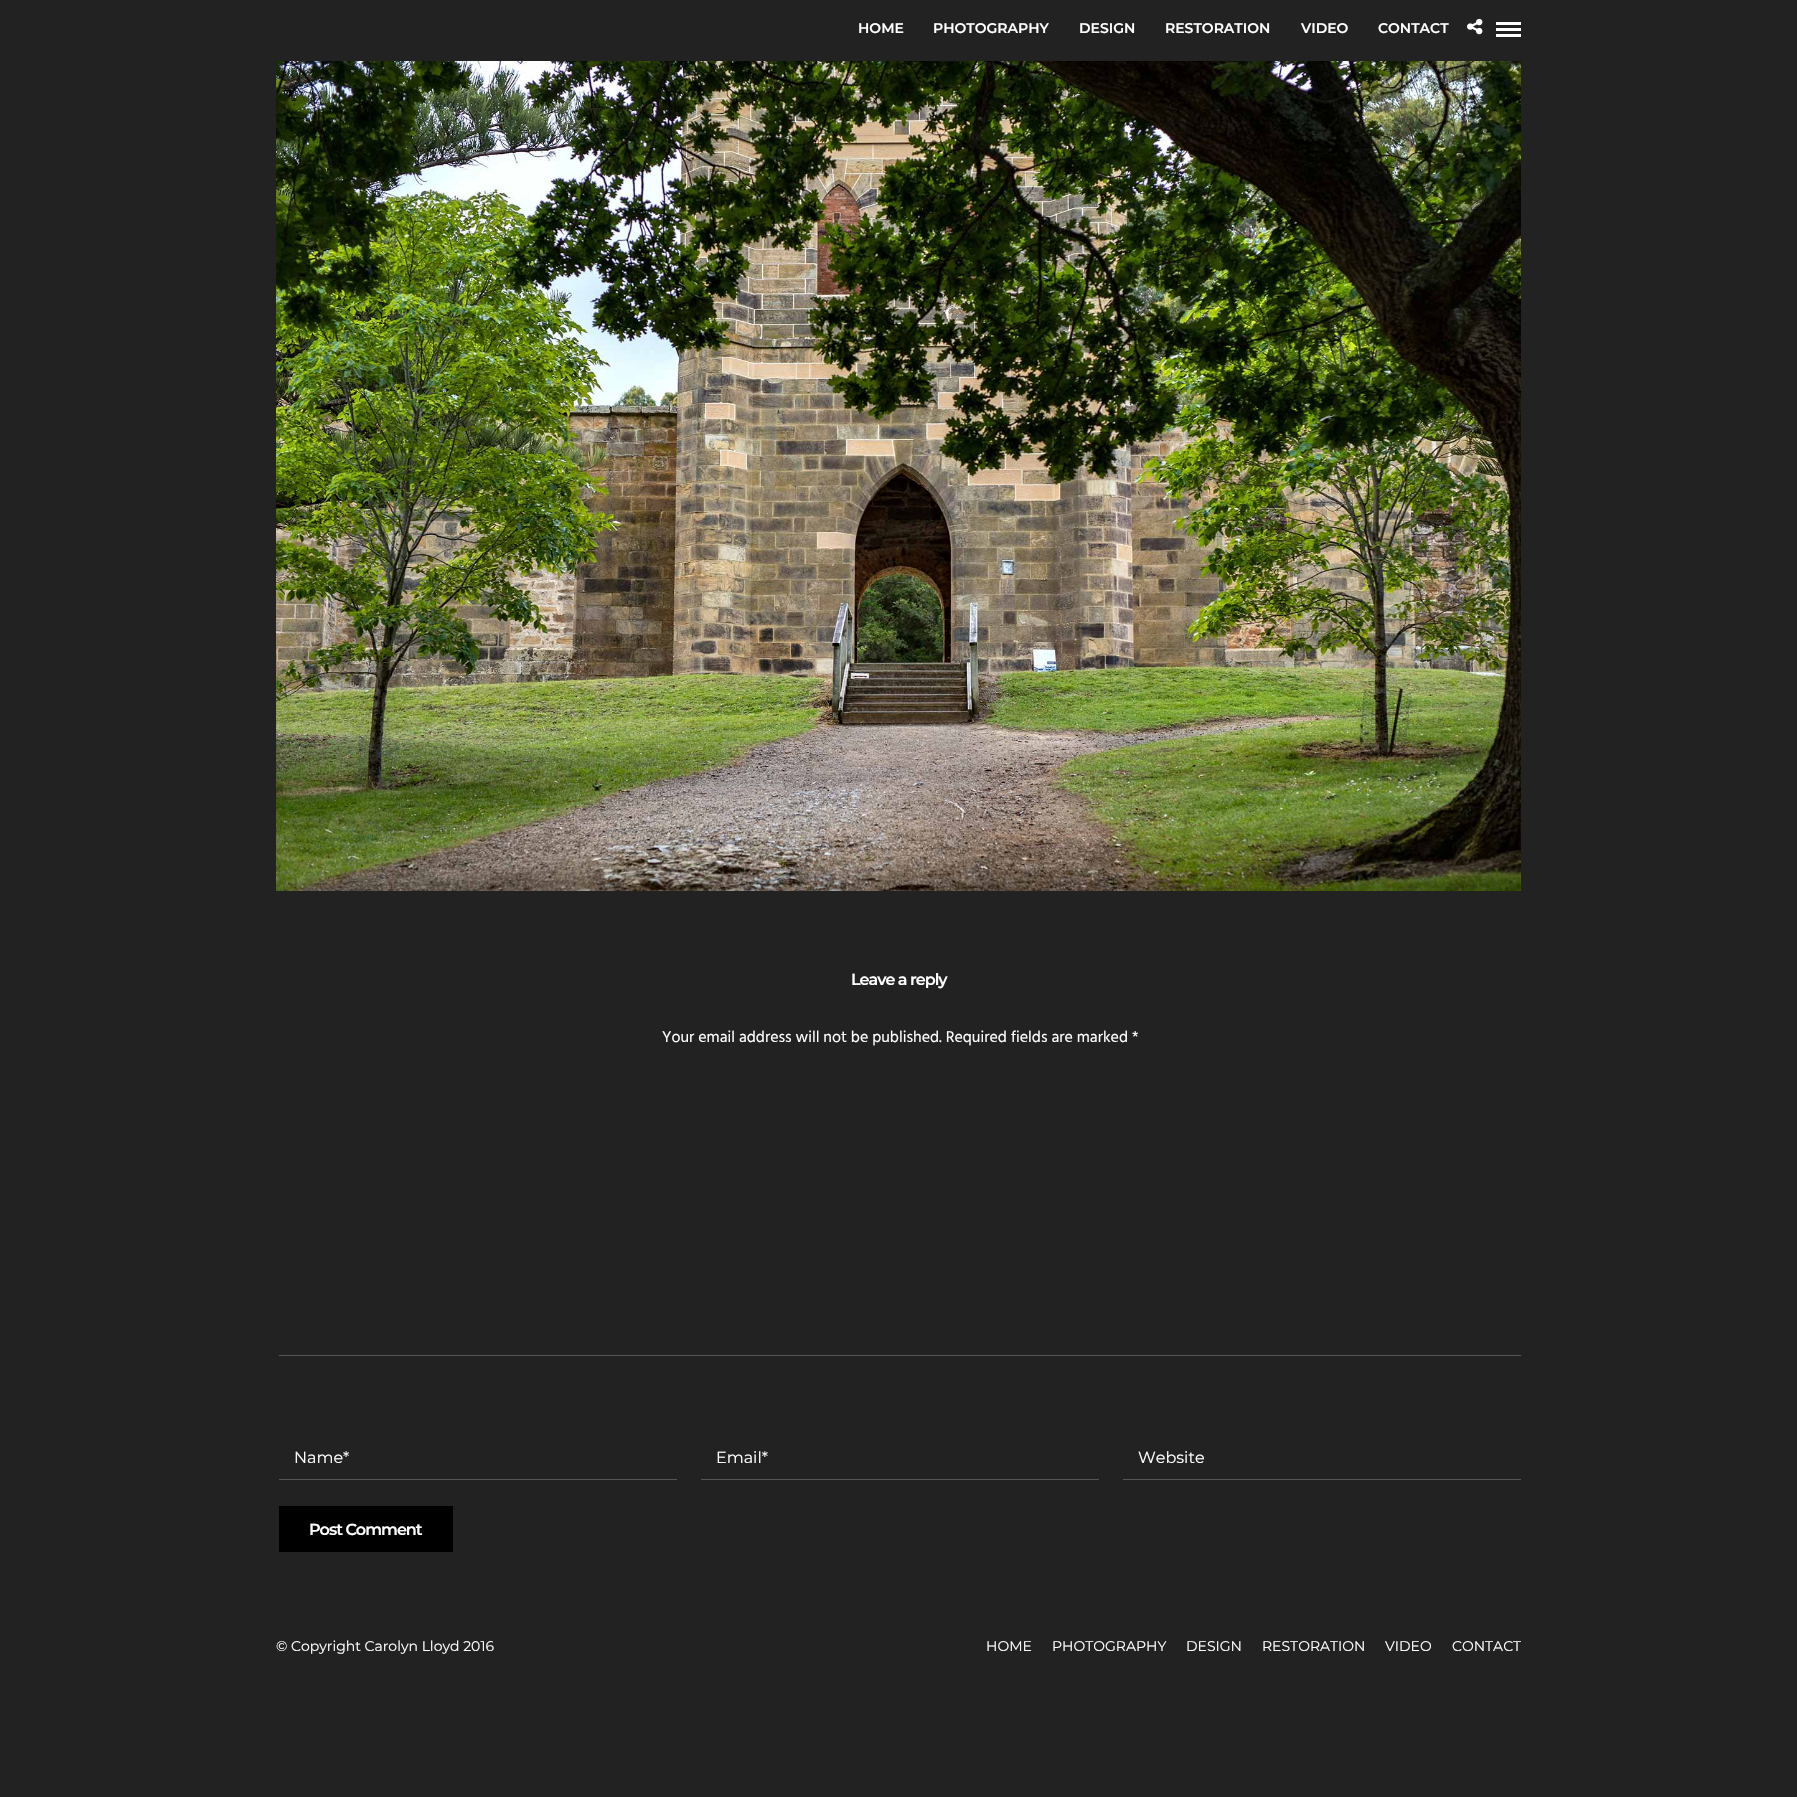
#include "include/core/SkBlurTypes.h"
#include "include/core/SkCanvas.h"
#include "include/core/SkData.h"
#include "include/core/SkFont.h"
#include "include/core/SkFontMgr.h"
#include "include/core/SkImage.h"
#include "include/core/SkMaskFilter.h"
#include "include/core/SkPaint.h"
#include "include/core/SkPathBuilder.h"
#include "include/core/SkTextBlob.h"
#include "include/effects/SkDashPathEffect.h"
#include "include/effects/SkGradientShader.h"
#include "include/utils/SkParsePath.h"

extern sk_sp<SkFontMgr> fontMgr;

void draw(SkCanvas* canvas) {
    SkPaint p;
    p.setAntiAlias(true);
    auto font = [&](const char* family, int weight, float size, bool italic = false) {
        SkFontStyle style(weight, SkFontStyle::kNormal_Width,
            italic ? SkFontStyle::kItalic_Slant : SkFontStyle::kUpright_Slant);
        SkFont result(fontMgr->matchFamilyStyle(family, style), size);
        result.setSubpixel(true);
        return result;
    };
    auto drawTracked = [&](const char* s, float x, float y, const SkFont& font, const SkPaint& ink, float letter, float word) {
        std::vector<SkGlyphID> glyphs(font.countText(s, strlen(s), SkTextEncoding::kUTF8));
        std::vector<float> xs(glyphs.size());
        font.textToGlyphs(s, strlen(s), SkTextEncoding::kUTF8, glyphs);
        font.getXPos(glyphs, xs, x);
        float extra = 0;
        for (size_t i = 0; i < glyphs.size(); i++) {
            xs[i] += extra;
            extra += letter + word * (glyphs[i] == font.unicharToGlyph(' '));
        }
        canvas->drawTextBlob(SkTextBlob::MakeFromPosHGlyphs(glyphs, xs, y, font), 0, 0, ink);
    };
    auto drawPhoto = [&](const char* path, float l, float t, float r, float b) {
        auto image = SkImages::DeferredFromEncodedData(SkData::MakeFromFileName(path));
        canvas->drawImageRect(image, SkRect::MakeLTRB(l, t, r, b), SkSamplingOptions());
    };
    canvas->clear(0xFF222222);
    auto font1 = font("Montserrat", 600, 14);
    p.setColor(0xFFFFFFFF);
    {
        const struct { const char* s; float x, y; } items[] = {
            {"HOME", 858, 33},
            {"PHOTOGRAPHY", 933, 33},
            {"DESIGN", 1079, 33},
            {"RESTORATION", 1165, 33},
            {"VIDEO", 1301, 33},
            {"CONTACT", 1378, 33},
        };
        for (auto [s, x, y] : items) {
            canvas->drawString(s, x, y, font1, p);
        }
    }
    drawPhoto("media/1.png", 1467, 18, 1483, 35);
    {
        const struct { float l, t, r, b; SkColor color; } items[] = {
            {1496, 22, 1521, 25, 0xFFFFFFFF},
            {1496, 28, 1521, 31, 0xFFFFFFFF},
            {1496, 34, 1521, 37, 0xFFFFFFFF},
        };
        for (auto [l, t, r, b, color] : items) {
            p.setColor(color);
            canvas->drawRect(SkRect::MakeLTRB(l, t, r, b), p);
        }
    }
    drawPhoto("media/2.png", 276, 61, 1521, 891);
    auto font2 = font("Montserrat", 600, 16);
    drawTracked("Leave a reply", 851, 985, font2, p, -1, 0);
    auto font3 = font("Hind", 400, 16);
    canvas->drawString("Your email address will not be published. Required fields are marked *", 662, 1042, font3, p);
    p.setColor(0xFF555555);
    canvas->drawRect(SkRect::MakeLTRB(279, 1355, 1521, 1356), p);
    canvas->drawRect(SkRect::MakeLTRB(279, 1479, 677, 1480), p);
    auto font4 = font("Montserrat", 400, 16);
    p.setColor(0xFFFFFFFF);
    canvas->drawString("Name*", 294, 1463, font4, p);
    p.setColor(0xFF555555);
    canvas->drawRect(SkRect::MakeLTRB(701, 1479, 1099, 1480), p);
    p.setColor(0xFFFFFFFF);
    canvas->drawString("Email*", 716, 1463, font4, p);
    p.setColor(0xFF555555);
    canvas->drawRect(SkRect::MakeLTRB(1123, 1479, 1521, 1480), p);
    p.setColor(0xFFFFFFFF);
    canvas->drawString("Website", 1138, 1463, font4, p);
    p.setColor(0xFF000000);
    canvas->drawRect(SkRect::MakeLTRB(279, 1506, 453, 1552), p);
    p.setColor(0xFFFFFFFF);
    drawTracked("Post Comment", 309, 1535, font2, p, -1, 0);
    auto font5 = font("Montserrat", 400, 14);
    {
        const struct { const char* s; float x, y; } items[] = {
            {"© Copyright Carolyn Lloyd 2016", 276, 1651},
            {"HOME", 986, 1651},
            {"PHOTOGRAPHY", 1052, 1651},
            {"DESIGN", 1186, 1651},
            {"RESTORATION", 1262, 1651},
            {"VIDEO", 1385, 1651},
            {"CONTACT", 1452, 1651},
        };
        for (auto [s, x, y] : items) {
            canvas->drawString(s, x, y, font5, p);
        }
    }
}
